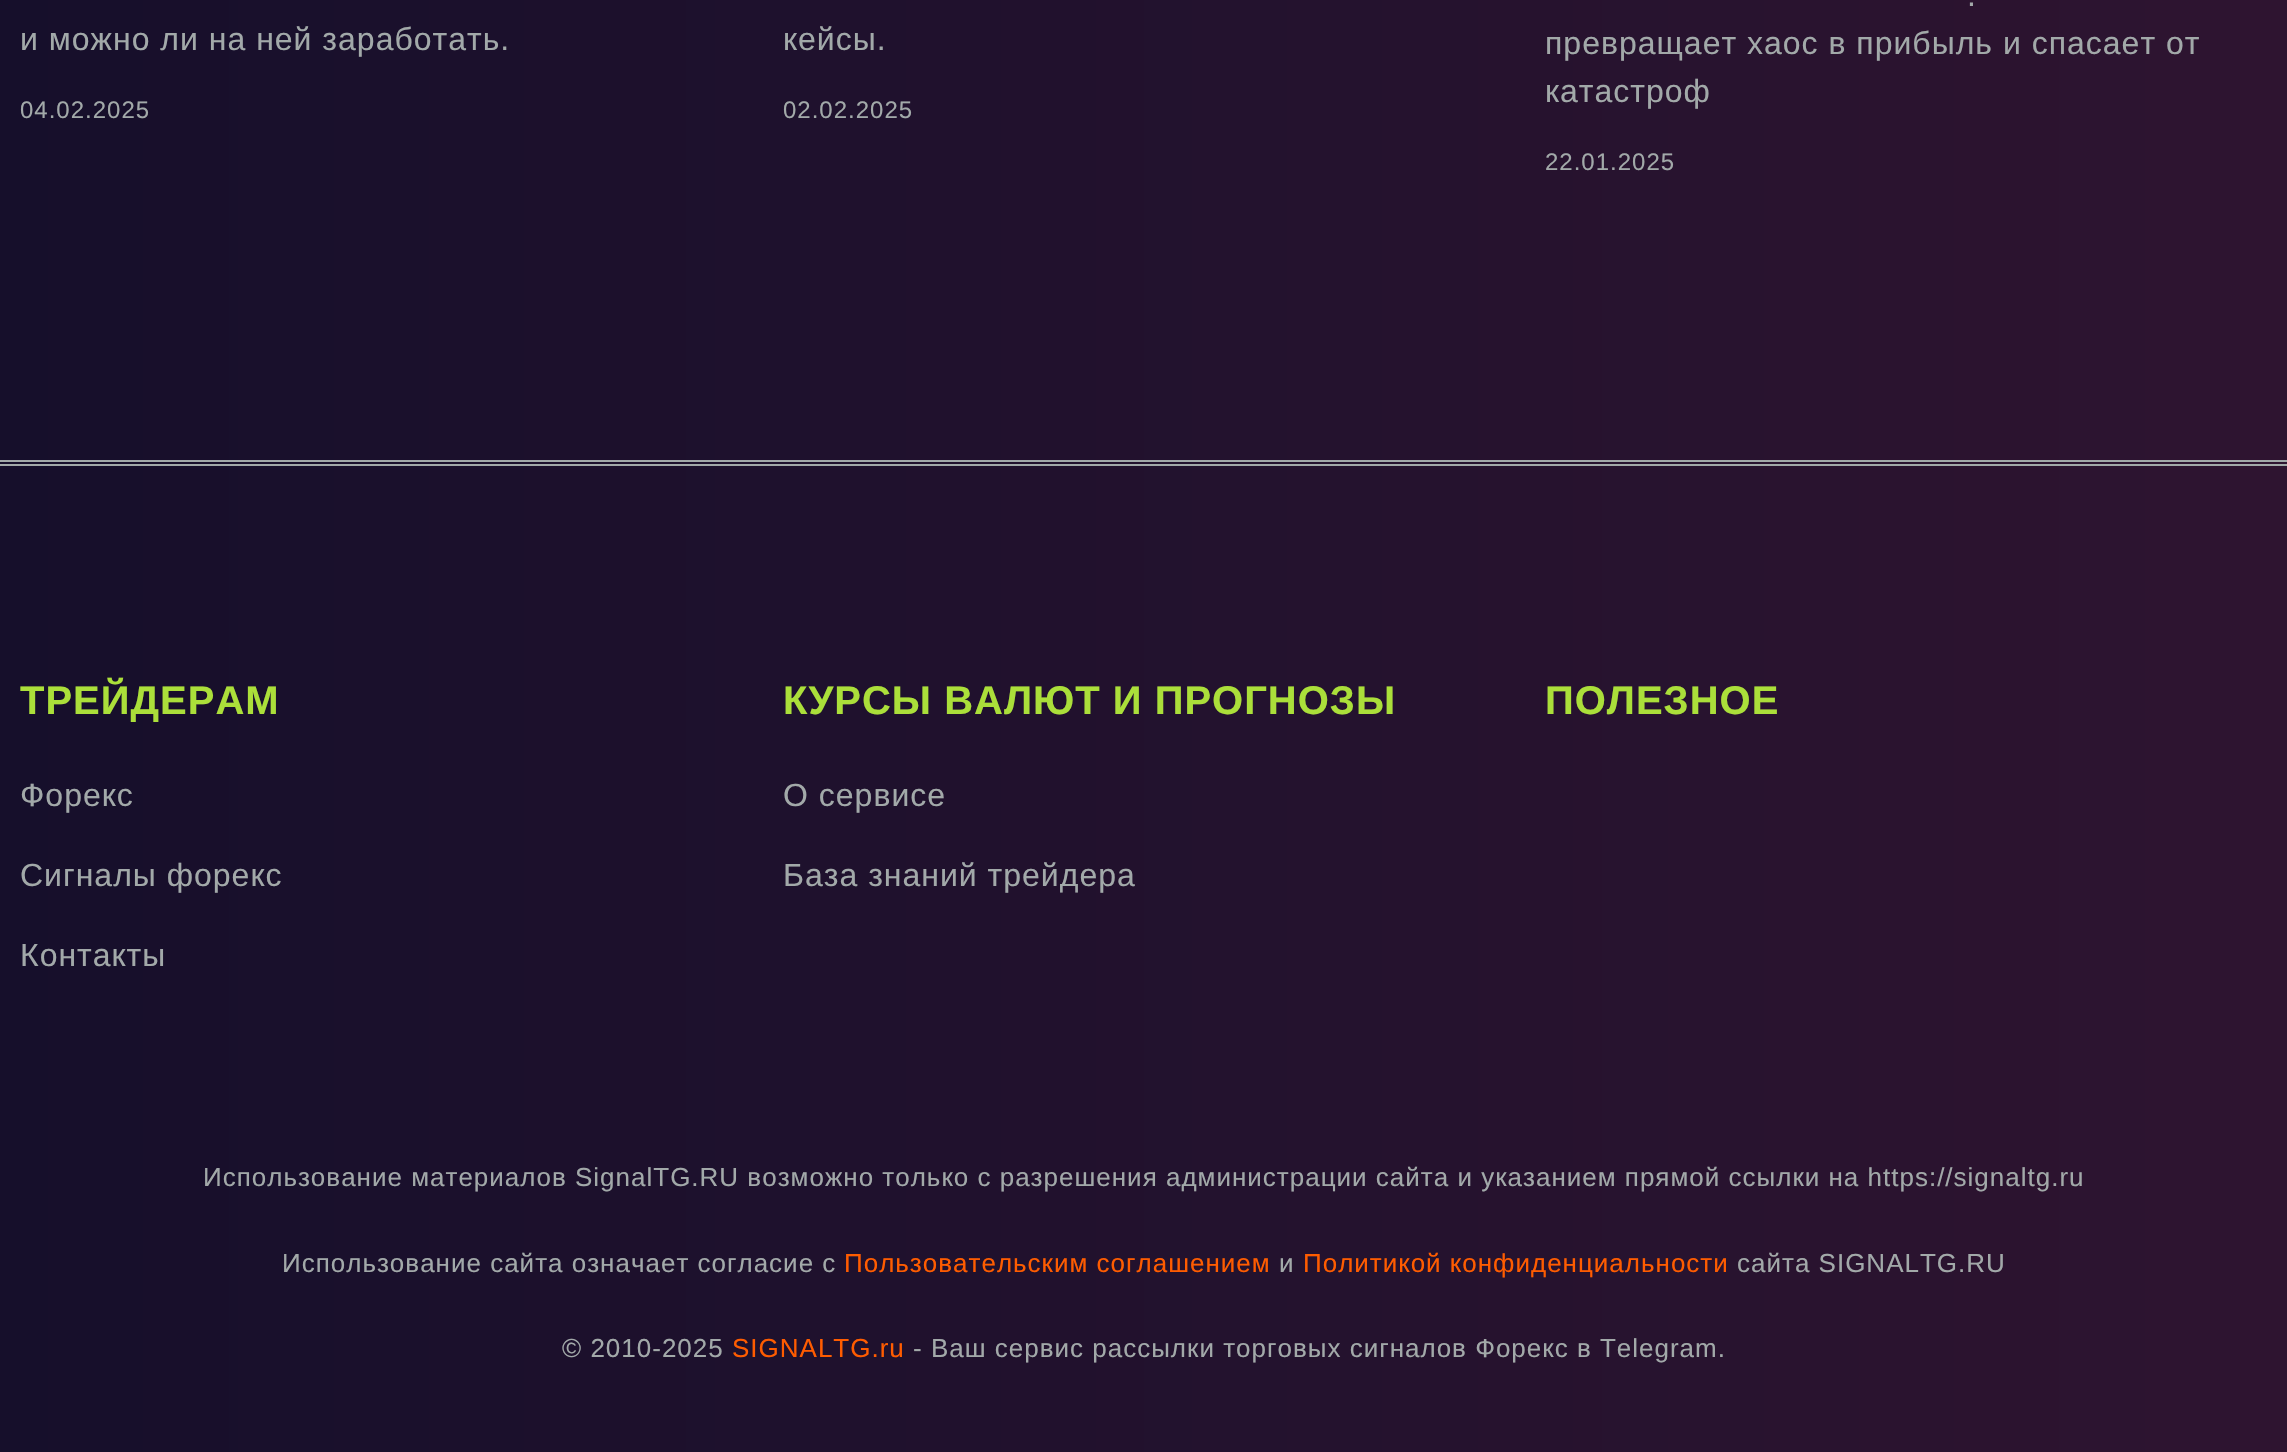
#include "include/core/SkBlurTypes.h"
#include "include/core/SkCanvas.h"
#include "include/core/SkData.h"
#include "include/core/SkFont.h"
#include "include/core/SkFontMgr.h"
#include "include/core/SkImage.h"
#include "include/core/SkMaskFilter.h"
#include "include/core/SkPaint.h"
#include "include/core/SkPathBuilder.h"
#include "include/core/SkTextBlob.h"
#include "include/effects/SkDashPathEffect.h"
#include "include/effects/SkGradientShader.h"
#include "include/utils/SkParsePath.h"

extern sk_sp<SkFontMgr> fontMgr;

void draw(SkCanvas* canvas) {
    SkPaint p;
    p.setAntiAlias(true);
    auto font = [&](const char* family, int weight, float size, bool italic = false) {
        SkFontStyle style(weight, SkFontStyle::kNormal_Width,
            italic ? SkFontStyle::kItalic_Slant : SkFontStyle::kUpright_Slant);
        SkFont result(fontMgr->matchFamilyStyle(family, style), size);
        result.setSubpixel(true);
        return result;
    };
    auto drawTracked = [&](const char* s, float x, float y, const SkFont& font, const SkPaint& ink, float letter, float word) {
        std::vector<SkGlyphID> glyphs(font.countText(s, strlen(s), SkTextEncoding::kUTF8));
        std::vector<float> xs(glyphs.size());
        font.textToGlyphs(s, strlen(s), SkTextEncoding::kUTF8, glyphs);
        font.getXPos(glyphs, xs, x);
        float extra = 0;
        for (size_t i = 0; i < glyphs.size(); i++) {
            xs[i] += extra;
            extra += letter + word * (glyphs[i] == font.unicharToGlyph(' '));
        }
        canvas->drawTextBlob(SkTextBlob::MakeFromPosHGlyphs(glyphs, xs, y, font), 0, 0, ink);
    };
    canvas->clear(0xFFFFFFFF);
    {
        const SkColor colors[] = {0xFF2E1430, 0xFF160F2B};
        const float stops[] = {0, 1};
        const SkPoint ends[] = {{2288, -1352}, {0, -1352}};
        p.setShader(SkGradientShader::MakeLinear(ends, colors, stops, 2, SkTileMode::kClamp));
        p.setAlpha(255);
    }
    canvas->drawRect(SkRect::MakeLTRB(0, 0, 2287, 1452), p);
    p.setShader(nullptr);
    p.setColor(0xFFA2A9A9);
    canvas->drawRect(SkRect::MakeLTRB(0, 460, 2287, 462), p);
    canvas->drawRect(SkRect::MakeLTRB(0, 464, 2287, 466), p);
    auto font1 = font("Liberation Sans", 400, 32);
    drawTracked("и можно ли на ней заработать.", 20, 50, font1, p, 1, 0);
    auto font2 = font("Liberation Sans", 400, 24);
    drawTracked("04.02.2025", 20, 118, font2, p, 1, 0);
    drawTracked("кейсы.", 783, 50, font1, p, 1, 0);
    drawTracked("02.02.2025", 783, 118, font2, p, 1, 0);
    {
        const struct { const char* s; float x, y; } items[] = {
            {".", 1967, 6},
            {"превращает хаос в прибыль и спасает от", 1545, 54},
            {"катастроф", 1545, 102},
        };
        for (auto [s, x, y] : items) {
            drawTracked(s, x, y, font1, p, 1, 0);
        }
    }
    drawTracked("22.01.2025", 1545, 170, font2, p, 1, 0);
    auto font3 = font("Liberation Sans", 700, 40);
    p.setColor(0xFFABDF3A);
    drawTracked("ТРЕЙДЕРАМ", 20, 714, font3, p, 1, 0);
    p.setColor(0xFFA2A9A9);
    {
        const struct { const char* s; float x, y; } items[] = {
            {"Форекс", 20, 806},
            {"Сигналы форекс", 20, 886},
            {"Контакты", 20, 966},
        };
        for (auto [s, x, y] : items) {
            drawTracked(s, x, y, font1, p, 1, 0);
        }
    }
    p.setColor(0xFFABDF3A);
    drawTracked("КУРСЫ ВАЛЮТ И ПРОГНОЗЫ", 783, 714, font3, p, 1, 0);
    p.setColor(0xFFA2A9A9);
    drawTracked("О сервисе", 783, 806, font1, p, 1, 0);
    drawTracked("База знаний трейдера", 783, 886, font1, p, 1, 0);
    p.setColor(0xFFABDF3A);
    drawTracked("ПОЛЕЗНОЕ", 1545, 714, font3, p, 1, 0);
    auto font4 = font("Liberation Sans", 400, 26);
    p.setColor(0xFFA2A9A9);
    drawTracked("Использование материалов SignalTG.RU возможно только с разрешения администрации сайта и указанием прямой ссылки на https://signaltg.ru", 203, 1186, font4, p, 1, 0);
    drawTracked("Использование сайта означает согласие с", 282, 1272, font4, p, 1, 0);
    p.setColor(0xFFFF5C00);
    drawTracked("Пользовательским соглашением", 844, 1272, font4, p, 1, 0);
    p.setColor(0xFFA2A9A9);
    drawTracked("и", 1279, 1272, font4, p, 1, 0);
    p.setColor(0xFFFF5C00);
    drawTracked("Политикой конфиденциальности", 1303, 1272, font4, p, 1, 0);
    p.setColor(0xFFA2A9A9);
    drawTracked("сайта SIGNALTG.RU", 1737, 1272, font4, p, 1, 0);
    drawTracked("© 2010-2025", 562, 1357, font4, p, 1, 0);
    p.setColor(0xFFFF5C00);
    drawTracked("SIGNALTG.ru", 732, 1357, font4, p, 1, 0);
    p.setColor(0xFFA2A9A9);
    drawTracked("- Ваш сервис рассылки торговых сигналов Форекс в Telegram.", 913, 1357, font4, p, 1, 0);
}
